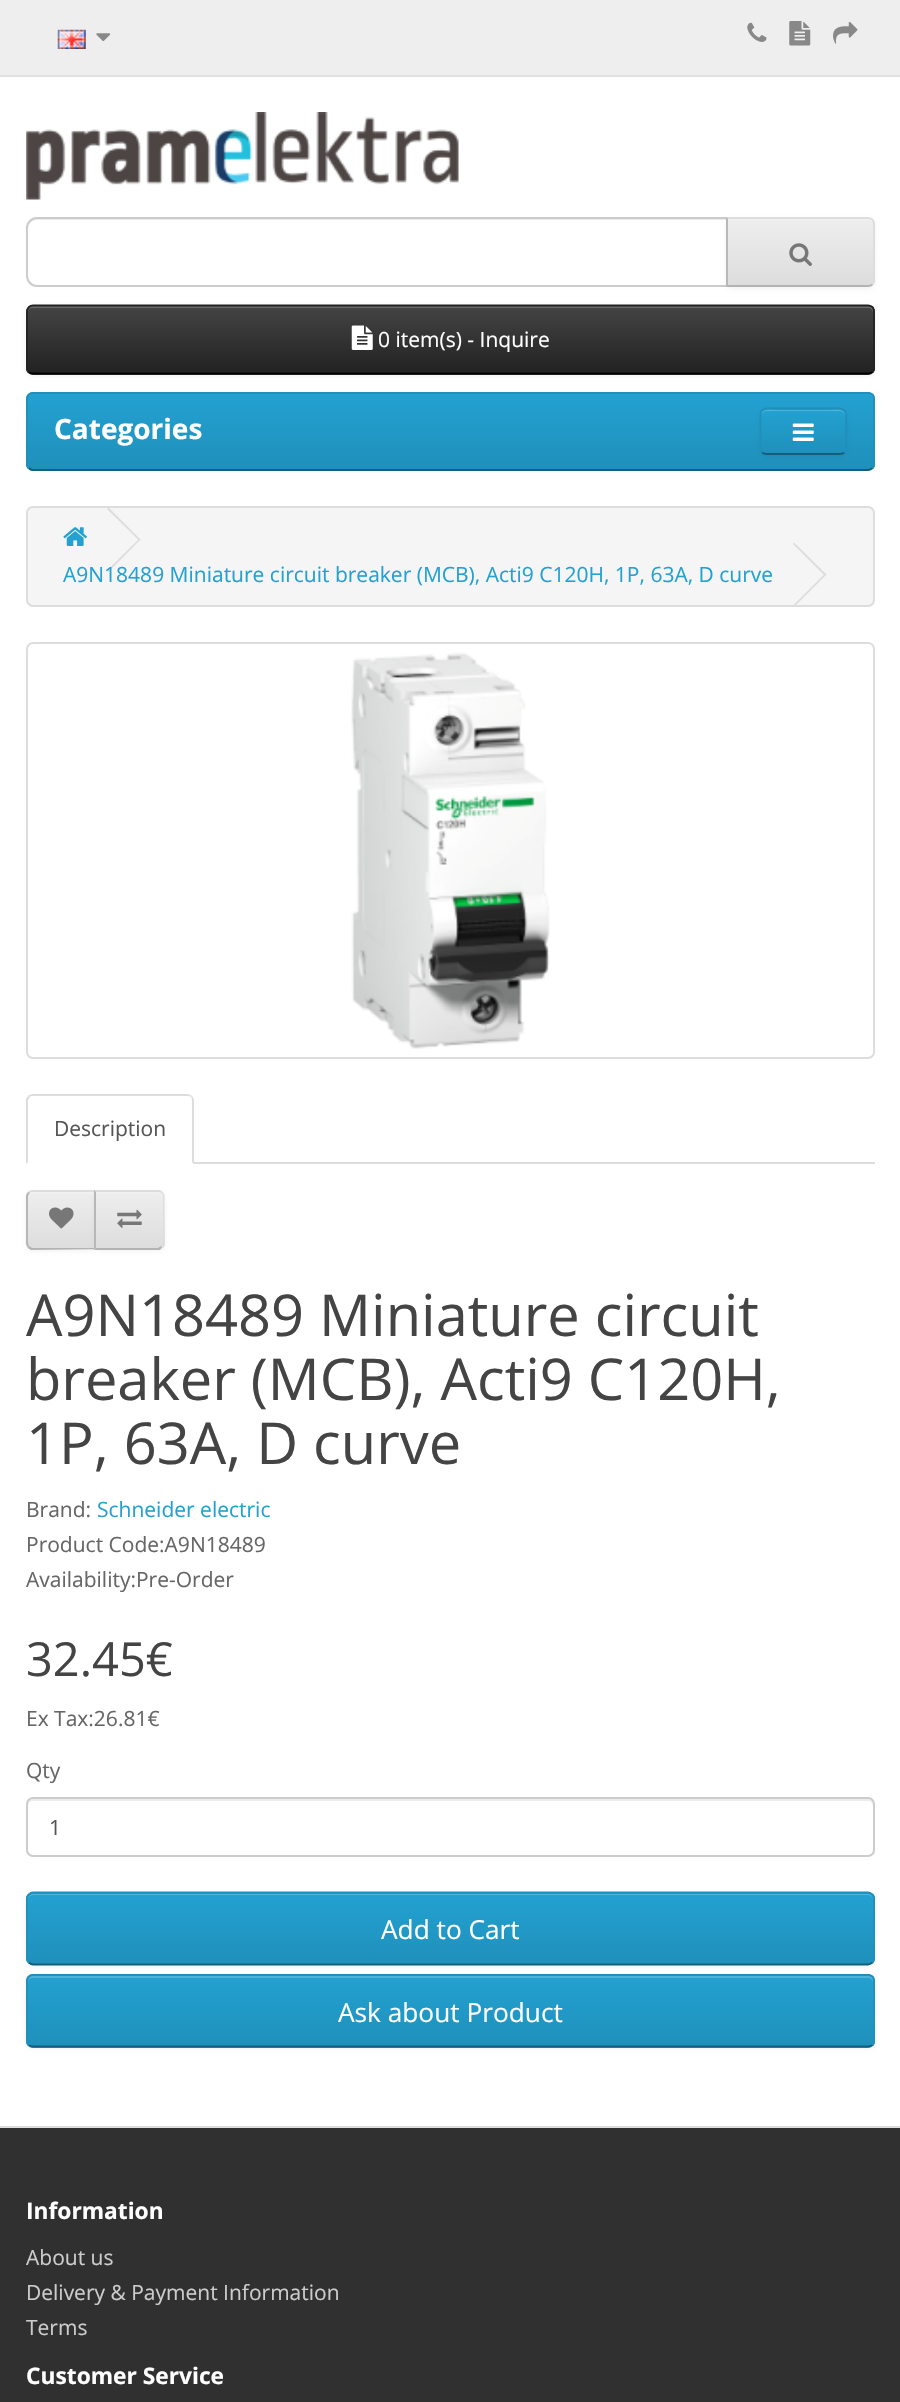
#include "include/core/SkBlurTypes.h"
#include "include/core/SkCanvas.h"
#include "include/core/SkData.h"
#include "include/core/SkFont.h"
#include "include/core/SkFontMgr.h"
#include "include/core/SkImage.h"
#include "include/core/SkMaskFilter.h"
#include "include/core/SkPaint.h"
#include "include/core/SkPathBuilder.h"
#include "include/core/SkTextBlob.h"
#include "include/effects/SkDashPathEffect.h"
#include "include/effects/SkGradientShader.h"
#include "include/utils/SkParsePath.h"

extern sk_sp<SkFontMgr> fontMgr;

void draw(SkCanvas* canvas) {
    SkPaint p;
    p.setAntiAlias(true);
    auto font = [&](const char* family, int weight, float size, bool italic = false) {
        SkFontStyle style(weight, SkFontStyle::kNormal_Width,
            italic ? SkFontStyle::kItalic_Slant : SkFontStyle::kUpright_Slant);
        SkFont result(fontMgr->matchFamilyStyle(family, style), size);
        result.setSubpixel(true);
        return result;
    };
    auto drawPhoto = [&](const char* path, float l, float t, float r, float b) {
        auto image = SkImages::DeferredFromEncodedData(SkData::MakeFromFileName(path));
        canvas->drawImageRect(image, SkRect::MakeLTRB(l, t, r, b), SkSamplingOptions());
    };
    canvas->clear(0xFFFFFFFF);
    p.setColor(0xFFEEEEEE);
    canvas->drawRect(SkRect::MakeLTRB(0, 0, 900, 75), p);
    p.setColor(0xFFE2E2E2);
    canvas->drawRect(SkRect::MakeLTRB(0, 75, 900, 77), p);
    drawPhoto("media/1.png", 57, 29, 86, 49);
    drawPhoto("media/2.png", 96, 33, 111, 41);
    drawPhoto("media/3.png", 747, 22, 767, 42);
    drawPhoto("media/4.png", 789, 21, 811, 46);
    drawPhoto("media/5.png", 833, 22, 858, 44);
    drawPhoto("media/6.png", 26, 112, 459, 200);
    p.setColor(0xFFECECEC);
    canvas->drawPath(SkPathBuilder().moveTo(37, 220).lineTo(726, 220).lineTo(726, 219).lineTo(37, 219).cubicTo(31, 219, 28, 224, 28, 229).cubicTo(28, 224, 32, 220, 37, 220).close().detach(), p);
    p.setStyle(SkPaint::kStroke_Style);
    p.setStrokeWidth(2);
    p.setColor(0xFFCCCCCC);
    canvas->drawPath(SkPathBuilder().moveTo(37, 218).lineTo(727, 218).lineTo(727, 286).lineTo(37, 286).cubicTo(31.5f, 286, 27, 281.5f, 27, 276).lineTo(27, 228).cubicTo(27, 222.5f, 31.5f, 218, 37, 218).close().detach(), p);
    p.setStyle(SkPaint::kFill_Style);
    p.setColor(0x0D000000);
    p.setMaskFilter(SkMaskFilter::MakeBlur(kNormal_SkBlurStyle, 2));
    canvas->drawRoundRect(SkRect::MakeLTRB(726, 219, 875, 289), 7, 7, p);
    p.setMaskFilter(nullptr);
    canvas->save();
    canvas->clipPath(SkPathBuilder().moveTo(726, 217).lineTo(868, 217).cubicTo(872, 217, 875, 220, 875, 224).lineTo(875, 280).cubicTo(875, 284, 872, 287, 868, 287).lineTo(726, 287).close().detach(), true);
    {
        const SkColor colors[] = {0xFFEEEEEE, 0xFFDDDDDD};
        const float stops[] = {0, 1};
        const SkPoint ends[] = {{801, 219}, {801, 285}};
        p.setShader(SkGradientShader::MakeLinear(ends, colors, stops, 2, SkTileMode::kClamp));
        p.setAlpha(255);
    }
    canvas->drawRect(SkRect::MakeLTRB(728, 219, 875, 285), p);
    canvas->restore();
    p.setShader(nullptr);
    p.setColor(0xFFF1F1F1);
    canvas->drawPath(SkPathBuilder().moveTo(728, 220).lineTo(868, 220).cubicTo(871, 220, 873, 223, 873, 226).lineTo(873, 224).cubicTo(873, 221, 871, 219, 868, 219).lineTo(728, 219).close().detach(), p);
    p.setColor(0xFFDDDDDD);
    canvas->drawPath(SkPathBuilder().moveTo(726, 217).lineTo(728, 219).lineTo(869, 219).lineTo(872, 220).lineTo(873, 219).cubicTo(872, 218, 870, 217, 868, 217).close().detach(), p);
    canvas->drawPath(SkPathBuilder().moveTo(875, 280).lineTo(875, 224).cubicTo(875, 222, 874, 220, 873, 219).lineTo(872, 220).cubicTo(872, 221, 873, 222, 873, 224).lineTo(873, 280).cubicTo(873, 282, 872, 283, 872, 284).lineTo(873, 285).cubicTo(874, 284, 875, 282, 875, 280).close().detach(), p);
    p.setColor(0xFFB3B3B3);
    canvas->drawPath(SkPathBuilder().moveTo(726, 287).lineTo(868, 287).cubicTo(870, 287, 872, 286, 873, 285).lineTo(872, 284).lineTo(869, 285).lineTo(728, 285).close().detach(), p);
    p.setColor(0xFFB7B7B7);
    canvas->drawPath(SkPathBuilder().moveTo(728, 219).lineTo(726, 217).lineTo(726, 287).lineTo(728, 285).close().detach(), p);
    drawPhoto("media/7.png", 789, 243, 812, 266);
    p.setColor(0x0D000000);
    p.setMaskFilter(SkMaskFilter::MakeBlur(kNormal_SkBlurStyle, 2));
    canvas->drawRoundRect(SkRect::MakeLTRB(26, 306, 875, 376), 7, 7, p);
    p.setMaskFilter(nullptr);
    p.setColor(0xFF363636);
    canvas->drawRoundRect(SkRect::MakeLTRB(26, 305, 875, 375), 7, 7, p);
    canvas->save();
    canvas->clipPath(SkPathBuilder().moveTo(33, 305).lineTo(868, 305).cubicTo(872, 305, 875, 308, 875, 312).lineTo(875, 368).cubicTo(875, 372, 872, 375, 868, 375).lineTo(33, 375).cubicTo(29, 375, 26, 372, 26, 368).lineTo(26, 312).cubicTo(26, 308, 29, 305, 33, 305).close().detach(), true);
    {
        const SkColor colors[] = {0xFF444444, 0xFF222222};
        const float stops[] = {0, 1};
        const SkPoint ends[] = {{451, 306}, {451, 373}};
        p.setShader(SkGradientShader::MakeLinear(ends, colors, stops, 2, SkTileMode::kClamp));
        p.setAlpha(255);
    }
    canvas->drawRect(SkRect::MakeLTRB(26, 306, 875, 373), p);
    canvas->restore();
    p.setShader(nullptr);
    p.setColor(0xFF696969);
    canvas->drawPath(SkPathBuilder().moveTo(33, 308).lineTo(868, 308).cubicTo(871, 308, 873, 310, 873, 313).lineTo(873, 311).cubicTo(873, 308, 871, 306, 868, 306).lineTo(33, 306).cubicTo(30, 306, 28, 308, 28, 311).lineTo(28, 313).cubicTo(28, 310, 30, 308, 33, 308).close().detach(), p);
    p.setStyle(SkPaint::kStroke_Style);
    p.setStrokeWidth(1.8f);
    p.setColor(0xFF000000);
    canvas->drawPath(SkPathBuilder().moveTo(872.5f, 372).cubicTo(871, 373, 869.5f, 373.5f, 868, 373.5f).lineTo(33, 373.5f).cubicTo(31.5f, 373.5f, 30, 373, 29, 372).detach(), p);
    p.setColor(0xFF222222);
    canvas->drawPath(SkPathBuilder().moveTo(29, 372).cubicTo(28, 370.5f, 27, 369, 27, 367.5f).lineTo(27, 311.5f).cubicTo(27, 310, 28, 308.5f, 29, 307).cubicTo(30, 306, 31.5f, 305.5f, 33, 305.5f).lineTo(868, 305.5f).cubicTo(869.5f, 305.5f, 871, 306, 872.5f, 307).cubicTo(873.5f, 308.5f, 874, 310, 874, 311.5f).lineTo(874, 367.5f).cubicTo(874, 369, 873.5f, 370.5f, 872.5f, 372).detach(), p);
    drawPhoto("media/8.png", 351, 325, 373, 350);
    auto font1 = font("Open Sans", 400, 21);
    p.setStyle(SkPaint::kFill_Style);
    p.setColor(0xFFFFFFFF);
    canvas->drawString("0 item(s) - Inquire", 378, 347, font1, p);
    p.setColor(0xFF229AC8);
    canvas->drawRoundRect(SkRect::MakeLTRB(26, 392, 875, 471), 7, 7, p);
    canvas->save();
    canvas->clipPath(SkPathBuilder().moveTo(33, 392).lineTo(868, 392).cubicTo(872, 392, 875, 395, 875, 399).lineTo(875, 464).cubicTo(875, 468, 872, 471, 868, 471).lineTo(33, 471).cubicTo(29, 471, 26, 468, 26, 464).lineTo(26, 399).cubicTo(26, 395, 29, 392, 33, 392).close().detach(), true);
    {
        const SkColor colors[] = {0xFF23A1D1, 0xFF1F90BB};
        const float stops[] = {0, 1};
        const SkPoint ends[] = {{451, 394}, {451, 469}};
        p.setShader(SkGradientShader::MakeLinear(ends, colors, stops, 2, SkTileMode::kClamp));
        p.setAlpha(255);
    }
    canvas->drawRect(SkRect::MakeLTRB(26, 394, 875, 469), p);
    canvas->restore();
    p.setStyle(SkPaint::kStroke_Style);
    p.setShader(nullptr);
    p.setColor(0xFF145E7A);
    canvas->drawPath(SkPathBuilder().moveTo(872.5f, 468).cubicTo(871, 469, 869.5f, 470, 868, 470).lineTo(33, 470).cubicTo(31.5f, 470, 30, 469, 29, 468).detach(), p);
    p.setColor(0xFF1F90BB);
    canvas->drawPath(SkPathBuilder().moveTo(29, 468).cubicTo(28, 467, 27, 465.5f, 27, 464).lineTo(27, 399).cubicTo(27, 397.5f, 28, 396, 29, 394.5f).cubicTo(30, 393.5f, 31.5f, 393, 33, 393).lineTo(868, 393).cubicTo(869.5f, 393, 871, 393.5f, 872.5f, 394.5f).cubicTo(873.5f, 396, 874, 397.5f, 874, 399).lineTo(874, 464).cubicTo(874, 465.5f, 873.5f, 467, 872.5f, 468).detach(), p);
    auto font2 = font("Open Sans", 700, 28);
    p.setStyle(SkPaint::kFill_Style);
    p.setColor(0xFFFFFFFF);
    canvas->drawString("Categories", 54, 439, font2, p);
    p.setColor(0x0D000000);
    p.setMaskFilter(SkMaskFilter::MakeBlur(kNormal_SkBlurStyle, 2));
    canvas->drawRoundRect(SkRect::MakeLTRB(760, 410, 847, 457), 7, 7, p);
    p.setMaskFilter(nullptr);
    p.setColor(0xFF229AC8);
    canvas->drawRoundRect(SkRect::MakeLTRB(760, 408, 847, 455), 7, 7, p);
    canvas->save();
    canvas->clipPath(SkPathBuilder().moveTo(767, 408).lineTo(840, 408).cubicTo(844, 408, 847, 411, 847, 415).lineTo(847, 448).cubicTo(847, 452, 844, 455, 840, 455).lineTo(767, 455).cubicTo(763, 455, 760, 452, 760, 448).lineTo(760, 415).cubicTo(760, 411, 763, 408, 767, 408).close().detach(), true);
    {
        const SkColor colors[] = {0xFF23A1D1, 0xFF1F90BB};
        const float stops[] = {0, 1};
        const SkPoint ends[] = {{803, 410}, {803, 453}};
        p.setShader(SkGradientShader::MakeLinear(ends, colors, stops, 2, SkTileMode::kClamp));
        p.setAlpha(255);
    }
    canvas->drawRect(SkRect::MakeLTRB(760, 410, 847, 453), p);
    canvas->restore();
    p.setShader(nullptr);
    p.setColor(0xFF4FB4DA);
    canvas->drawPath(SkPathBuilder().moveTo(766, 411).lineTo(840, 411).cubicTo(843, 411, 845, 414, 845, 416).cubicTo(845, 407, 833, 410, 828, 410).lineTo(778, 410).cubicTo(773, 410, 761, 407, 761, 416).cubicTo(761, 414, 764, 411, 766, 411).close().detach(), p);
    p.setStyle(SkPaint::kStroke_Style);
    p.setColor(0xFF145E7A);
    canvas->drawPath(SkPathBuilder().moveTo(844.5f, 452.5f).cubicTo(843, 453.5f, 841.5f, 454, 840, 454).lineTo(766.5f, 454).cubicTo(765, 454, 763.5f, 453.5f, 762, 452.5f).detach(), p);
    p.setColor(0xFF1F90BB);
    canvas->drawPath(SkPathBuilder().moveTo(762, 452.5f).cubicTo(761, 451, 760.5f, 449.5f, 760.5f, 448).lineTo(760.5f, 415).cubicTo(760.5f, 413, 761, 411.5f, 762, 410.5f).cubicTo(763.5f, 409.5f, 765, 408.5f, 766.5f, 408.5f).lineTo(840, 408.5f).cubicTo(841.5f, 408.5f, 843, 409.5f, 844.5f, 410.5f).cubicTo(845.5f, 411.5f, 846, 413, 846, 415).lineTo(846, 448).cubicTo(846, 449.5f, 845.5f, 451, 844.5f, 452.5f).detach(), p);
    drawPhoto("media/9.png", 792, 423, 814, 441);
    p.setStyle(SkPaint::kFill_Style);
    p.setColor(0xFFF5F5F5);
    canvas->drawRoundRect(SkRect::MakeLTRB(27, 507, 874, 606), 6, 6, p);
    p.setStyle(SkPaint::kStroke_Style);
    p.setStrokeWidth(2);
    p.setColor(0xFFDDDDDD);
    canvas->drawRoundRect(SkRect::MakeLTRB(27, 507, 874, 606), 6, 6, p);
    drawPhoto("media/10.png", 63, 527, 87, 546);
    p.setStyle(SkPaint::kFill_Style);
    canvas->drawPath(SkPathBuilder().moveTo(107, 509).lineTo(108.5f, 507.5f).lineTo(140.5f, 539.5f).lineTo(139.5f, 541).close().detach(), p);
    canvas->drawPath(SkPathBuilder().moveTo(107, 570.5f).lineTo(139.5f, 538.5f).lineTo(140.5f, 539.5f).lineTo(108.5f, 572).close().detach(), p);
    p.setColor(0xFF23A1D1);
    canvas->drawString("A9N18489 Miniature circuit breaker (MCB), Acti9 C120H, 1P, 63A, D curve", 63, 582, font1, p);
    p.setColor(0xFFDDDDDD);
    canvas->drawPath(SkPathBuilder().moveTo(793, 544).lineTo(794, 542.5f).lineTo(826.5f, 574.5f).lineTo(825, 576).close().detach(), p);
    canvas->drawPath(SkPathBuilder().moveTo(793, 605.5f).lineTo(825, 573.5f).lineTo(826.5f, 574.5f).lineTo(794, 607).close().detach(), p);
    p.setStyle(SkPaint::kStroke_Style);
    canvas->drawRoundRect(SkRect::MakeLTRB(27, 643, 874, 1058), 6, 6, p);
    drawPhoto("media/11.png", 351, 652, 550, 1049);
    p.setStyle(SkPaint::kFill_Style);
    canvas->drawRect(SkRect::MakeLTRB(194, 1162, 875, 1164), p);
    canvas->drawPath(SkPathBuilder().moveTo(33, 1094).cubicTo(31, 1094, 29, 1095, 28, 1096).lineTo(30, 1097).cubicTo(30, 1096, 32, 1096, 33, 1096).lineTo(187, 1096).cubicTo(188, 1096, 190, 1096, 191, 1097).lineTo(192, 1096).cubicTo(191, 1095, 189, 1094, 187, 1094).close().detach(), p);
    canvas->drawPath(SkPathBuilder().moveTo(194, 1164).lineTo(194, 1101).cubicTo(194, 1099, 193, 1097, 192, 1096).lineTo(191, 1097).cubicTo(192, 1098, 192, 1100, 192, 1101).lineTo(192, 1162).close().detach(), p);
    canvas->drawPath(SkPathBuilder().moveTo(26, 1164).lineTo(28, 1162).lineTo(28, 1100).lineTo(30, 1097).lineTo(28, 1096).lineTo(26, 1099).close().detach(), p);
    p.setColor(0xFF555555);
    canvas->drawString("Description", 54, 1136, font1, p);
    p.setColor(0x0D000000);
    p.setMaskFilter(SkMaskFilter::MakeBlur(kNormal_SkBlurStyle, 2));
    canvas->drawRoundRect(SkRect::MakeLTRB(26, 1192, 96, 1251), 7, 7, p);
    p.setMaskFilter(nullptr);
    p.setColor(0xFFE7E7E7);
    canvas->drawPath(SkPathBuilder().moveTo(33, 1190).lineTo(96, 1190).lineTo(96, 1250).lineTo(33, 1250).cubicTo(29, 1250, 26, 1247, 26, 1243).lineTo(26, 1197).cubicTo(26, 1193, 29, 1190, 33, 1190).close().detach(), p);
    canvas->save();
    canvas->clipPath(SkPathBuilder().moveTo(33, 1190).lineTo(96, 1190).lineTo(96, 1250).lineTo(33, 1250).cubicTo(29, 1250, 26, 1247, 26, 1243).lineTo(26, 1197).cubicTo(26, 1193, 29, 1190, 33, 1190).close().detach(), true);
    {
        const SkColor colors[] = {0xFFEEEEEE, 0xFFDDDDDD};
        const float stops[] = {0, 1};
        const SkPoint ends[] = {{61, 1192}, {61, 1248}};
        p.setShader(SkGradientShader::MakeLinear(ends, colors, stops, 2, SkTileMode::kClamp));
        p.setAlpha(255);
    }
    canvas->drawRect(SkRect::MakeLTRB(26, 1192, 94, 1248), p);
    canvas->restore();
    p.setShader(nullptr);
    p.setColor(0x33FFFFFF);
    canvas->drawPath(SkPathBuilder().moveTo(33, 1194).lineTo(94, 1194).lineTo(94, 1248).lineTo(95, 1248).lineTo(95, 1192).lineTo(33, 1192).cubicTo(30, 1192, 28, 1194, 28, 1197).lineTo(28, 1199).cubicTo(28, 1196, 30, 1194, 33, 1194).close().detach(), p);
    p.setColor(0xFFDDDDDD);
    canvas->drawPath(SkPathBuilder().moveTo(33, 1190).cubicTo(31, 1190, 29, 1191, 28, 1192).lineTo(30, 1193).cubicTo(30, 1192, 32, 1192, 33, 1192).lineTo(94, 1192).lineTo(96, 1190).close().detach(), p);
    p.setColor(0xFFB3B3B3);
    canvas->drawPath(SkPathBuilder().moveTo(31, 1250).lineTo(28, 1248).lineTo(29, 1246).lineTo(32, 1248).lineTo(94, 1248).lineTo(94, 1247).lineTo(96, 1249).close().detach(), p);
    p.setColor(0xFFB7B7B7);
    canvas->drawPath(SkPathBuilder().moveTo(26, 1195).lineTo(28, 1192).lineTo(30, 1193).cubicTo(29, 1194, 28, 1195, 28, 1197).lineTo(28, 1242).cubicTo(28, 1244, 29, 1245, 29, 1246).lineTo(28, 1248).lineTo(26, 1244).close().detach(), p);
    drawPhoto("media/12.png", 49, 1207, 74, 1229);
    p.setColor(0x0D000000);
    p.setMaskFilter(SkMaskFilter::MakeBlur(kNormal_SkBlurStyle, 2));
    canvas->drawRoundRect(SkRect::MakeLTRB(95, 1192, 165, 1251), 7, 7, p);
    p.setMaskFilter(nullptr);
    p.setColor(0xFFE7E7E7);
    canvas->drawPath(SkPathBuilder().moveTo(95, 1190).lineTo(158, 1190).cubicTo(162, 1190, 165, 1193, 165, 1197).lineTo(165, 1243).cubicTo(165, 1247, 162, 1250, 158, 1250).lineTo(95, 1250).close().detach(), p);
    canvas->save();
    canvas->clipPath(SkPathBuilder().moveTo(95, 1190).lineTo(158, 1190).cubicTo(162, 1190, 165, 1193, 165, 1197).lineTo(165, 1243).cubicTo(165, 1247, 162, 1250, 158, 1250).lineTo(95, 1250).close().detach(), true);
    {
        const SkColor colors[] = {0xFFEEEEEE, 0xFFDDDDDD};
        const float stops[] = {0, 1};
        const SkPoint ends[] = {{130, 1192}, {130, 1248}};
        p.setShader(SkGradientShader::MakeLinear(ends, colors, stops, 2, SkTileMode::kClamp));
        p.setAlpha(255);
    }
    canvas->drawRect(SkRect::MakeLTRB(96, 1192, 165, 1248), p);
    canvas->restore();
    p.setShader(nullptr);
    p.setColor(0xFFF1F1F1);
    canvas->drawPath(SkPathBuilder().moveTo(96, 1194).lineTo(158, 1194).cubicTo(160, 1194, 163, 1196, 163, 1199).lineTo(163, 1197).cubicTo(163, 1194, 161, 1192, 158, 1192).lineTo(96, 1192).close().detach(), p);
    p.setColor(0xFFDDDDDD);
    canvas->drawPath(SkPathBuilder().moveTo(94, 1190).lineTo(96, 1192).lineTo(158, 1192).cubicTo(159, 1192, 160, 1192, 161, 1193).lineTo(162, 1192).cubicTo(161, 1191, 160, 1190, 158, 1190).close().detach(), p);
    canvas->drawPath(SkPathBuilder().moveTo(162, 1192).cubicTo(163, 1193, 164, 1195, 164, 1197).lineTo(164, 1242).cubicTo(164, 1244, 163, 1246, 162, 1247).lineTo(161, 1246).cubicTo(162, 1245, 163, 1244, 163, 1242).lineTo(163, 1197).cubicTo(163, 1195, 162, 1194, 161, 1193).close().detach(), p);
    p.setColor(0xFFB3B3B3);
    canvas->drawPath(SkPathBuilder().moveTo(162, 1247).lineTo(160, 1250).lineTo(94, 1250).lineTo(96, 1248).lineTo(158, 1248).lineTo(161, 1246).close().detach(), p);
    p.setColor(0xFFB7B7B7);
    canvas->drawPath(SkPathBuilder().moveTo(96, 1192).lineTo(94, 1190).lineTo(94, 1250).lineTo(96, 1248).close().detach(), p);
    drawPhoto("media/13.png", 117, 1209, 142, 1228);
    auto font3 = font("Open Sans", 400, 57.75f);
    p.setColor(0xFF444444);
    {
        const struct { const char* s; float x, y; } items[] = {
            {"A9N18489 Miniature circuit", 26, 1336},
            {"breaker (MCB), Acti9 C120H,", 26, 1400},
            {"1P, 63A, D curve", 26, 1464},
        };
        for (auto [s, x, y] : items) {
            canvas->drawString(s, x, y, font3, p);
        }
    }
    p.setColor(0xFF666666);
    canvas->drawString("Brand:", 26, 1517, font1, p);
    p.setColor(0xFF23A1D1);
    canvas->drawString("Schneider electric", 97, 1517, font1, p);
    p.setColor(0xFF666666);
    canvas->drawString("Product Code:A9N18489", 26, 1552, font1, p);
    canvas->drawString("Availability:Pre-Order", 26, 1587, font1, p);
    auto font4 = font("Open Sans", 400, 47);
    p.setColor(0xFF444444);
    canvas->drawString("32.45€", 26, 1676, font4, p);
    p.setColor(0xFF666666);
    canvas->drawString("Ex Tax:26.81€", 26, 1726, font1, p);
    canvas->drawString("Qty", 26, 1778, font1, p);
    p.setColor(0xFFECECEC);
    canvas->drawPath(SkPathBuilder().moveTo(33, 1801).lineTo(868, 1801).cubicTo(871, 1801, 873, 1803, 873, 1806).lineTo(873, 1804).cubicTo(873, 1801, 871, 1799, 868, 1799).lineTo(33, 1799).cubicTo(30, 1799, 28, 1801, 28, 1804).lineTo(28, 1806).cubicTo(28, 1803, 30, 1801, 33, 1801).close().detach(), p);
    p.setStyle(SkPaint::kStroke_Style);
    p.setColor(0xFFCCCCCC);
    canvas->drawRoundRect(SkRect::MakeLTRB(27, 1798, 874, 1856), 6, 6, p);
    p.setStyle(SkPaint::kFill_Style);
    p.setColor(0xFF555555);
    canvas->drawString("1", 49, 1835, font1, p);
    p.setColor(0x0D000000);
    p.setMaskFilter(SkMaskFilter::MakeBlur(kNormal_SkBlurStyle, 2));
    canvas->drawRoundRect(SkRect::MakeLTRB(26, 1894, 875, 1967), 7, 7, p);
    p.setMaskFilter(nullptr);
    p.setColor(0xFF229AC8);
    canvas->drawRoundRect(SkRect::MakeLTRB(26, 1892, 875, 1965), 7, 7, p);
    canvas->save();
    canvas->clipPath(SkPathBuilder().moveTo(33, 1892).lineTo(868, 1892).cubicTo(872, 1892, 875, 1895, 875, 1899).lineTo(875, 1958).cubicTo(875, 1962, 872, 1965, 868, 1965).lineTo(33, 1965).cubicTo(29, 1965, 26, 1962, 26, 1958).lineTo(26, 1899).cubicTo(26, 1895, 29, 1892, 33, 1892).close().detach(), true);
    {
        const SkColor colors[] = {0xFF23A1D1, 0xFF1F90BB};
        const float stops[] = {0, 1};
        const SkPoint ends[] = {{451, 1894}, {451, 1964}};
        p.setShader(SkGradientShader::MakeLinear(ends, colors, stops, 2, SkTileMode::kClamp));
        p.setAlpha(255);
    }
    canvas->drawRect(SkRect::MakeLTRB(26, 1894, 875, 1964), p);
    canvas->restore();
    p.setShader(nullptr);
    p.setColor(0xFF4FB4DA);
    canvas->drawPath(SkPathBuilder().moveTo(33, 1895).lineTo(868, 1895).cubicTo(871, 1895, 873, 1898, 873, 1900).cubicTo(873, 1897, 871, 1894, 868, 1894).lineTo(33, 1894).cubicTo(31, 1894, 29, 1895, 28, 1897).lineTo(28, 1900).cubicTo(28, 1898, 30, 1895, 33, 1895).close().detach(), p);
    p.setStyle(SkPaint::kStroke_Style);
    p.setStrokeWidth(1.8f);
    p.setColor(0xFF145E7A);
    canvas->drawPath(SkPathBuilder().moveTo(872.5f, 1962.5f).cubicTo(871, 1963.5f, 869.5f, 1964.5f, 868, 1964.5f).lineTo(33, 1964.5f).cubicTo(31.5f, 1964.5f, 30, 1963.5f, 29, 1962.5f).detach(), p);
    p.setColor(0xFF1F90BB);
    canvas->drawPath(SkPathBuilder().moveTo(29, 1962.5f).cubicTo(28, 1961.5f, 27, 1960, 27, 1958).lineTo(27, 1899).cubicTo(27, 1897, 28, 1895.5f, 29, 1894.5f).cubicTo(30, 1893.5f, 31.5f, 1892.5f, 33, 1892.5f).lineTo(868, 1892.5f).cubicTo(869.5f, 1892.5f, 871, 1893.5f, 872.5f, 1894.5f).cubicTo(873.5f, 1895.5f, 874, 1897, 874, 1899).lineTo(874, 1958).cubicTo(874, 1960, 873.5f, 1961.5f, 872.5f, 1962.5f).detach(), p);
    auto font5 = font("Open Sans", 400, 26.25f);
    p.setStyle(SkPaint::kFill_Style);
    p.setColor(0xFFFFFFFF);
    canvas->drawString("Add to Cart", 381, 1939, font5, p);
    p.setColor(0x0D000000);
    p.setMaskFilter(SkMaskFilter::MakeBlur(kNormal_SkBlurStyle, 2));
    canvas->drawRoundRect(SkRect::MakeLTRB(26, 1976, 875, 2049), 7, 7, p);
    p.setMaskFilter(nullptr);
    p.setColor(0xFF229AC8);
    canvas->drawRoundRect(SkRect::MakeLTRB(26, 1974, 875, 2048), 7, 7, p);
    canvas->save();
    canvas->clipPath(SkPathBuilder().moveTo(33, 1974).lineTo(868, 1974).cubicTo(872, 1974, 875, 1977, 875, 1981).lineTo(875, 2041).cubicTo(875, 2045, 872, 2048, 868, 2048).lineTo(33, 2048).cubicTo(29, 2048, 26, 2045, 26, 2041).lineTo(26, 1981).cubicTo(26, 1977, 29, 1974, 33, 1974).close().detach(), true);
    {
        const SkColor colors[] = {0xFF23A1D1, 0xFF1F90BB};
        const float stops[] = {0, 1};
        const SkPoint ends[] = {{451, 1976}, {451, 2046}};
        p.setShader(SkGradientShader::MakeLinear(ends, colors, stops, 2, SkTileMode::kClamp));
        p.setAlpha(255);
    }
    canvas->drawRect(SkRect::MakeLTRB(26, 1976, 875, 2046), p);
    canvas->restore();
    p.setShader(nullptr);
    p.setColor(0xFF4FB4DA);
    canvas->drawPath(SkPathBuilder().moveTo(33, 1978).lineTo(868, 1978).cubicTo(871, 1978, 873, 1980, 873, 1983).lineTo(873, 1981).cubicTo(873, 1978, 871, 1976, 868, 1976).lineTo(33, 1976).cubicTo(30, 1976, 28, 1978, 28, 1981).lineTo(28, 1983).cubicTo(28, 1980, 30, 1978, 33, 1978).close().detach(), p);
    p.setStyle(SkPaint::kStroke_Style);
    p.setColor(0xFF145E7A);
    canvas->drawPath(SkPathBuilder().moveTo(872.5f, 2045).cubicTo(871, 2046, 869.5f, 2046.5f, 868, 2046.5f).lineTo(33, 2046.5f).cubicTo(31.5f, 2046.5f, 30, 2046, 29, 2045).detach(), p);
    p.setColor(0xFF1F90BB);
    canvas->drawPath(SkPathBuilder().moveTo(29, 2045).cubicTo(28, 2043.5f, 27, 2042, 27, 2040.5f).lineTo(27, 1981).cubicTo(27, 1979.5f, 28, 1978, 29, 1976.5f).cubicTo(30, 1975.5f, 31.5f, 1975, 33, 1975).lineTo(868, 1975).cubicTo(869.5f, 1975, 871, 1975.5f, 872.5f, 1976.5f).cubicTo(873.5f, 1978, 874, 1979.5f, 874, 1981).lineTo(874, 2040.5f).cubicTo(874, 2042, 873.5f, 2043.5f, 872.5f, 2045).detach(), p);
    p.setStyle(SkPaint::kFill_Style);
    p.setColor(0xFFFFFFFF);
    canvas->drawString("Ask about Product", 338, 2022, font5, p);
    p.setColor(0xFF303030);
    canvas->drawRect(SkRect::MakeLTRB(0, 2128, 900, 2402), p);
    p.setColor(0xFFDDDDDD);
    canvas->drawRect(SkRect::MakeLTRB(0, 2126, 900, 2128), p);
    auto font6 = font("Open Sans", 700, 22.75f);
    p.setColor(0xFFFFFFFF);
    canvas->drawString("Information", 26, 2219, font6, p);
    p.setColor(0xFFCCCCCC);
    {
        const struct { const char* s; float x, y; } items[] = {
            {"About us", 26, 2265},
            {"Delivery & Payment Information", 26, 2300},
            {"Terms", 26, 2335},
        };
        for (auto [s, x, y] : items) {
            canvas->drawString(s, x, y, font1, p);
        }
    }
    p.setColor(0xFFFFFFFF);
    canvas->drawString("Customer Service", 26, 2384, font6, p);
}
